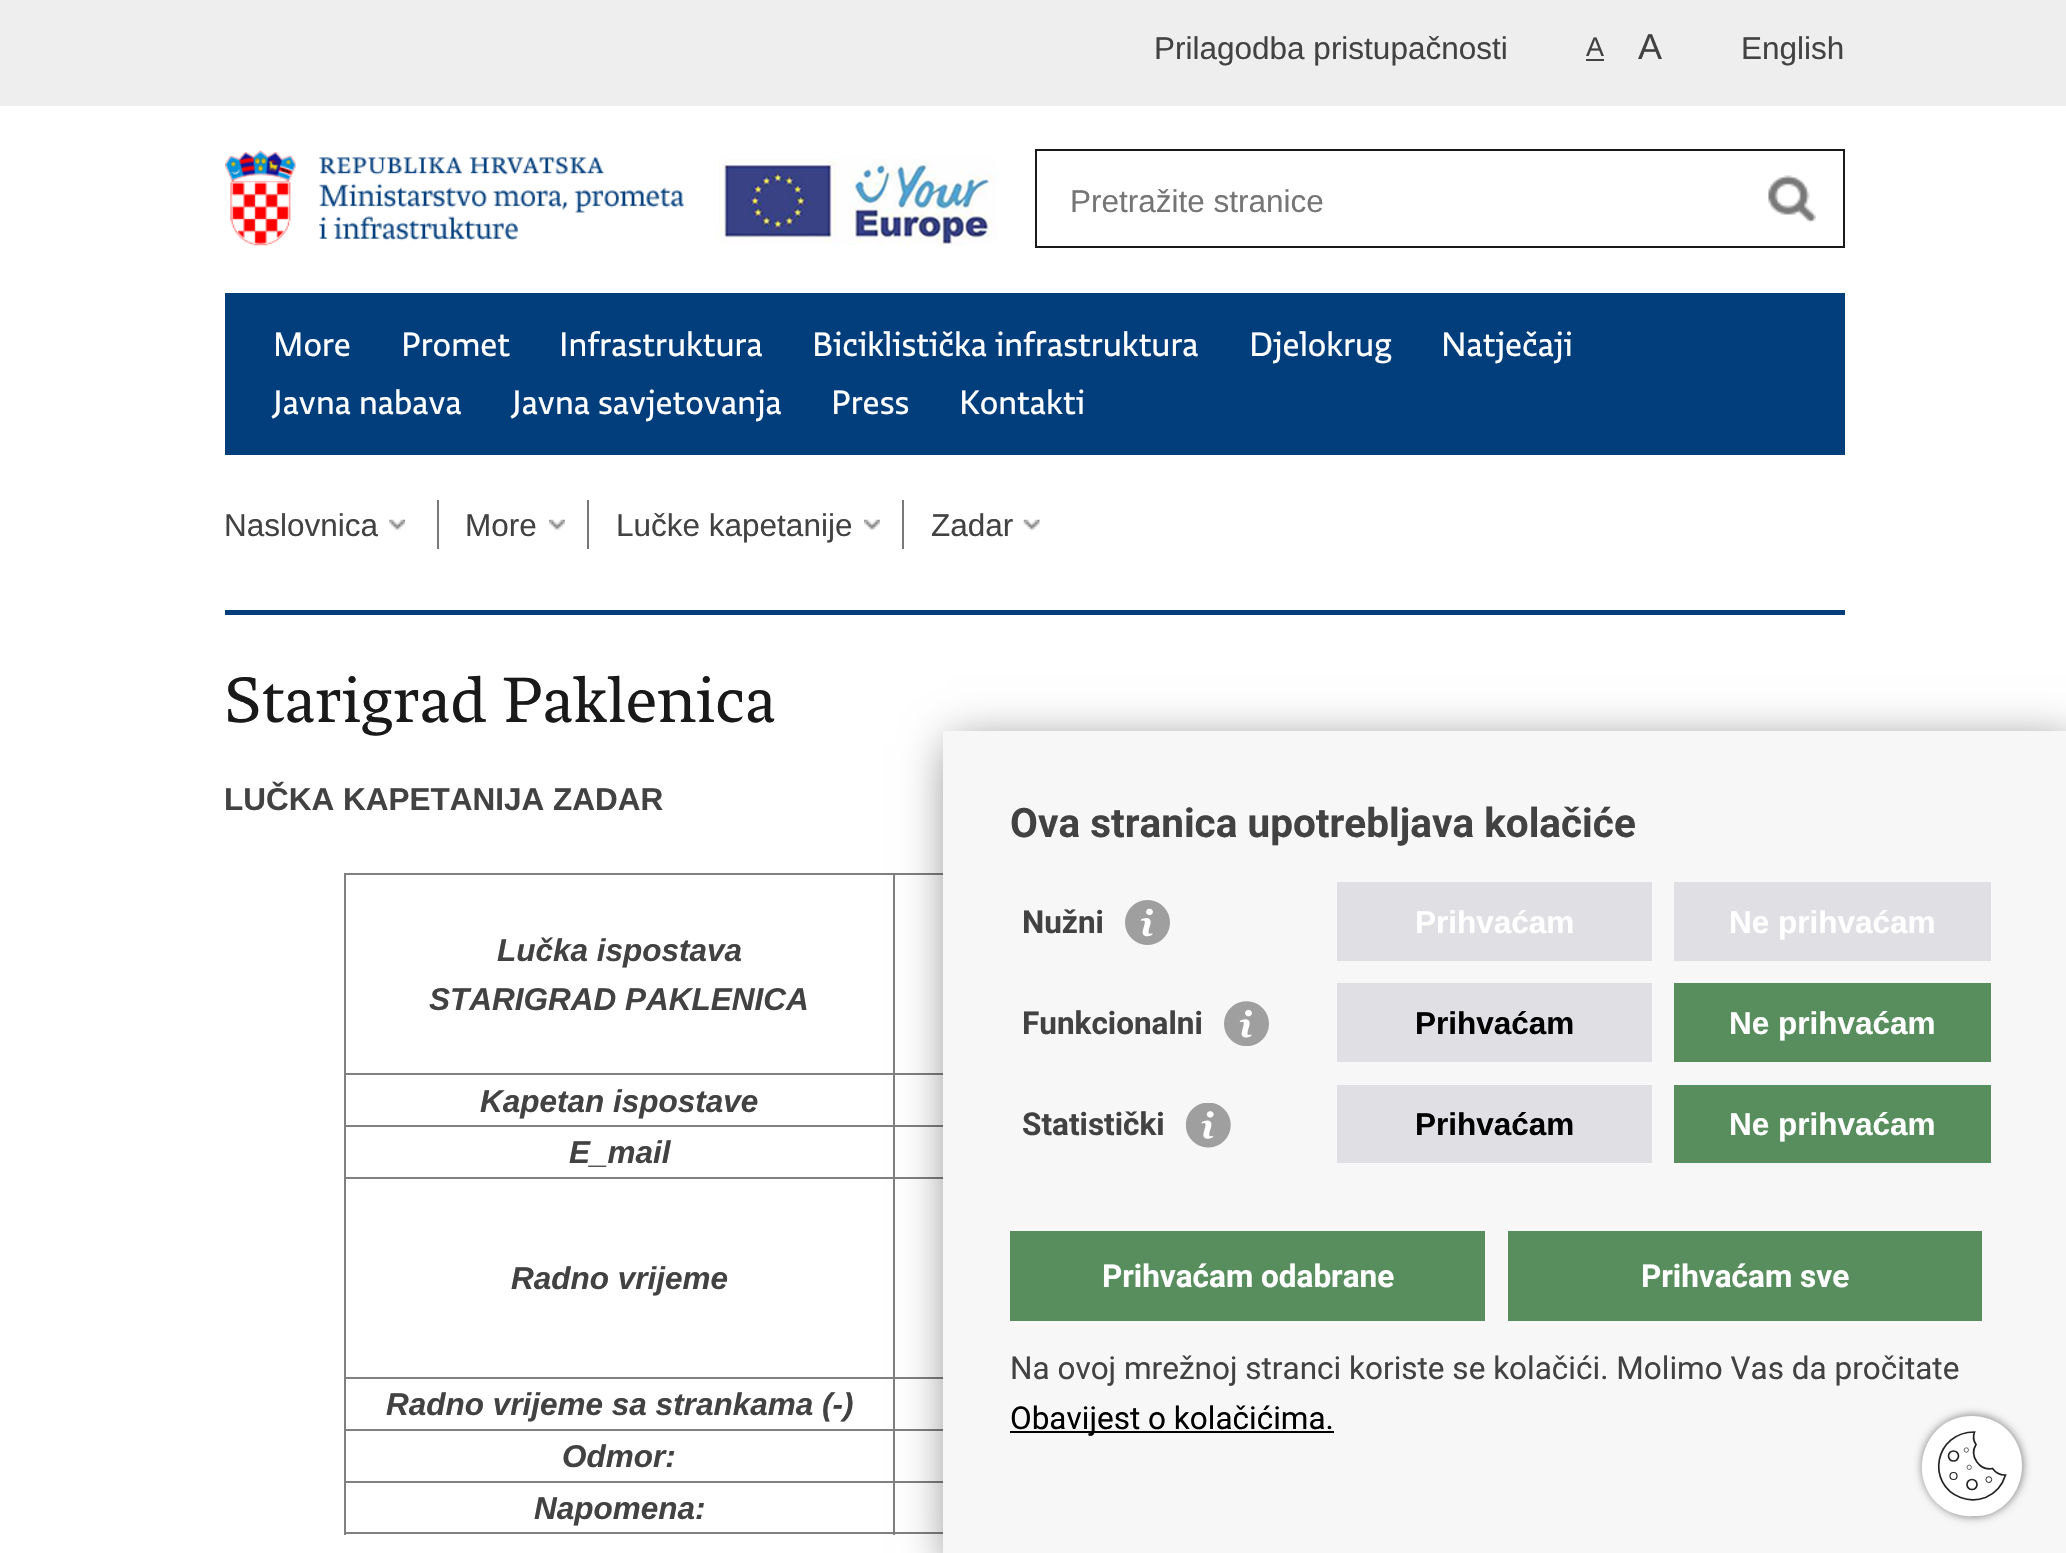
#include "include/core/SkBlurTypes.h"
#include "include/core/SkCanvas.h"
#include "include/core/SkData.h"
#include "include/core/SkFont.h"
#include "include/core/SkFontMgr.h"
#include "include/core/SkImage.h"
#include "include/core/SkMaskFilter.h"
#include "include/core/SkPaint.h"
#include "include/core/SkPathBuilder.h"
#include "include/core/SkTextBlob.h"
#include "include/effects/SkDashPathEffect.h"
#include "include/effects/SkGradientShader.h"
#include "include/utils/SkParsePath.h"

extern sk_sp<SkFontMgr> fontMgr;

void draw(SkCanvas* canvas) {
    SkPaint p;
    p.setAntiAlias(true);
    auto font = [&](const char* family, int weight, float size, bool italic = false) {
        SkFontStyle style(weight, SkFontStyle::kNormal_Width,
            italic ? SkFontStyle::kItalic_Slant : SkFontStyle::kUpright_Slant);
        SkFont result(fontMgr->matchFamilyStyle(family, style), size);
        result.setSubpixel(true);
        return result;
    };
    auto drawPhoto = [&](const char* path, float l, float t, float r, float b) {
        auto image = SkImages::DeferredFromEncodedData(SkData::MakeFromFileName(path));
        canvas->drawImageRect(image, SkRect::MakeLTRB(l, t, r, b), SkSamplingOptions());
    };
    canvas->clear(0xFFFFFFFF);
    p.setColor(0xFFEEEEEE);
    canvas->drawRect(SkRect::MakeLTRB(0, 0, 2066, 106), p);
    auto font1 = font("Liberation Sans", 400, 31.5f);
    p.setColor(0xFF424242);
    canvas->drawString("Prilagodba pristupačnosti", 1154, 59, font1, p);
    auto font2 = font("Liberation Sans", 400, 27);
    canvas->drawString("A", 1586, 56, font2, p);
    canvas->drawRect(SkRect::MakeLTRB(1586, 59, 1604, 61), p);
    auto font3 = font("Liberation Sans", 400, 36);
    canvas->drawString("A", 1638, 59, font3, p);
    canvas->drawString("English", 1741, 59, font1, p);
    drawPhoto("media/1.png", 225, 150, 684, 246);
    drawPhoto("media/2.png", 718, 158, 998, 246);
    p.setStyle(SkPaint::kStroke_Style);
    p.setStrokeWidth(2);
    p.setColor(0xFF191919);
    canvas->drawRect(SkRect::MakeLTRB(1036, 150, 1844, 247), p);
    p.setStyle(SkPaint::kFill_Style);
    p.setColor(0xFF757575);
    canvas->drawString("Pretražite stranice", 1070, 212, font1, p);
    drawPhoto("media/3.png", 1768, 175, 1816, 223);
    p.setColor(0xFF033E7C);
    canvas->drawRect(SkRect::MakeLTRB(225, 293, 1845, 455), p);
    auto font4 = font("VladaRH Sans", 400, 36);
    p.setColor(0xFFFFFFFF);
    {
        const struct { const char* s; float x, y; } items[] = {
            {"More", 273, 356},
            {"Promet", 401, 356},
            {"Infrastruktura", 559, 356},
            {"Biciklistička infrastruktura", 812, 356},
            {"Djelokrug", 1249, 356},
            {"Natječaji", 1441, 356},
            {"Javna nabava", 273, 414},
            {"Javna savjetovanja", 512, 414},
            {"Press", 831, 414},
            {"Kontakti", 959, 414},
        };
        for (auto [s, x, y] : items) {
            canvas->drawString(s, x, y, font4, p);
        }
    }
    p.setColor(0xFF424242);
    canvas->drawString("Naslovnica", 224, 536, font1, p);
    drawPhoto("media/4.png", 389, 519, 405, 531);
    p.setColor(0xFF787878);
    canvas->drawRect(SkRect::MakeLTRB(437, 500, 439, 549), p);
    p.setColor(0xFF424242);
    canvas->drawString("More", 465, 536, font1, p);
    drawPhoto("media/5.png", 549, 519, 565, 531);
    p.setColor(0xFF787878);
    canvas->drawRect(SkRect::MakeLTRB(587, 500, 589, 549), p);
    p.setColor(0xFF424242);
    canvas->drawString("Lučke kapetanije", 616, 536, font1, p);
    drawPhoto("media/6.png", 864, 519, 880, 531);
    p.setColor(0xFF787878);
    canvas->drawRect(SkRect::MakeLTRB(902, 500, 904, 549), p);
    p.setColor(0xFF424242);
    canvas->drawString("Zadar", 931, 536, font1, p);
    drawPhoto("media/7.png", 1023, 519, 1040, 531);
    p.setColor(0xFF033E7C);
    canvas->drawRect(SkRect::MakeLTRB(225, 610, 1845, 615), p);
    auto font5 = font("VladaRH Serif", 400, 67.5f);
    p.setColor(0xFF191919);
    canvas->drawString("Starigrad Paklenica", 224, 722, font5, p);
    auto font6 = font("Liberation Sans", 700, 31.5f);
    p.setColor(0xFF424242);
    canvas->drawString("LUČKA KAPETANIJA ZADAR", 224, 810, font6, p);
    {
        const struct { float l, t, r, b; SkColor color; } items[] = {
            {344, 873, 943, 875, 0xFF808080},
            {344, 1532, 943, 1534, 0xFF808080},
            {344, 873, 346, 1535, 0xFF808080},
        };
        for (auto [l, t, r, b, color] : items) {
            p.setColor(color);
            canvas->drawRect(SkRect::MakeLTRB(l, t, r, b), p);
        }
    }
    auto font7 = font("Liberation Sans", 700, 31.5f, true);
    p.setColor(0xFF424242);
    canvas->drawString("Lučka ispostava", 497, 961, font7, p);
    canvas->drawString("STARIGRAD PAKLENICA", 429, 1010, font7, p);
    {
        const struct { float l, t, r, b; SkColor color; } items[] = {
            {893, 1073, 943, 1075, 0xFF808080},
            {893, 1125, 943, 1127, 0xFF808080},
            {893, 1177, 943, 1179, 0xFF808080},
            {893, 1377, 943, 1379, 0xFF808080},
            {893, 1429, 943, 1431, 0xFF808080},
            {893, 1481, 943, 1483, 0xFF808080},
            {893, 1481, 895, 1535, 0xFF808080},
            {344, 1481, 896, 1483, 0xFF808080},
            {893, 1429, 895, 1483, 0xFF808080},
            {344, 1429, 896, 1431, 0xFF808080},
            {893, 1377, 895, 1431, 0xFF808080},
            {344, 1377, 896, 1379, 0xFF808080},
            {893, 1177, 895, 1379, 0xFF808080},
            {344, 1177, 896, 1179, 0xFF808080},
            {893, 1125, 895, 1179, 0xFF808080},
            {344, 1125, 896, 1127, 0xFF808080},
            {893, 1073, 895, 1127, 0xFF808080},
            {344, 1073, 896, 1075, 0xFF808080},
            {893, 873, 895, 1076, 0xFF808080},
        };
        for (auto [l, t, r, b, color] : items) {
            p.setColor(color);
            canvas->drawRect(SkRect::MakeLTRB(l, t, r, b), p);
        }
    }
    p.setColor(0xFF424242);
    {
        const struct { const char* s; float x, y; } items[] = {
            {"Kapetan ispostave", 480, 1112},
            {"E_mail", 569, 1163},
            {"Radno vrijeme", 511, 1289},
            {"Radno vrijeme sa strankama (-)", 386, 1415},
            {"Odmor:", 562, 1467},
            {"Napomena:", 534, 1519},
        };
        for (auto [s, x, y] : items) {
            canvas->drawString(s, x, y, font7, p);
        }
    }
    p.setColor(0x80000000);
    p.setMaskFilter(SkMaskFilter::MakeBlur(kNormal_SkBlurStyle, 22.5f));
    canvas->drawRect(SkRect::MakeLTRB(950, 743, 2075, 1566), p);
    p.setMaskFilter(nullptr);
    p.setColor(0xFFF7F7F7);
    canvas->drawRect(SkRect::MakeLTRB(943, 731, 2066, 1553), p);
    auto font8 = font("Roboto", 700, 40.5f);
    p.setColor(0xFF424242);
    canvas->drawString("Ova stranica upotrebljava kolačiće", 1010, 837, font8, p);
    auto font9 = font("Roboto", 700, 31.5f);
    canvas->drawString("Nužni", 1022, 933, font9, p);
    drawPhoto("media/8.png", 1125, 900, 1170, 945);
    p.setColor(0xFFE0E0E4);
    canvas->drawRect(SkRect::MakeLTRB(1337, 882, 1652, 961), p);
    p.setColor(0xFFFFFFFF);
    canvas->drawString("Prihvaćam", 1415, 933, font6, p);
    p.setColor(0xFFE0E0E4);
    canvas->drawRect(SkRect::MakeLTRB(1674, 882, 1991, 961), p);
    p.setColor(0xFFFFFFFF);
    canvas->drawString("Ne prihvaćam", 1729, 933, font6, p);
    p.setColor(0xFF424242);
    canvas->drawString("Funkcionalni", 1022, 1034, font9, p);
    drawPhoto("media/9.png", 1224, 1001, 1269, 1046);
    p.setColor(0xFFE0E0E4);
    canvas->drawRect(SkRect::MakeLTRB(1337, 983, 1652, 1062), p);
    p.setColor(0xFF000000);
    canvas->drawString("Prihvaćam", 1415, 1034, font6, p);
    p.setColor(0xFF588E5E);
    canvas->drawRect(SkRect::MakeLTRB(1674, 983, 1991, 1062), p);
    p.setColor(0xFFFFFFFF);
    canvas->drawString("Ne prihvaćam", 1729, 1034, font6, p);
    p.setColor(0xFF424242);
    canvas->drawString("Statistički", 1022, 1135, font9, p);
    drawPhoto("media/10.png", 1186, 1103, 1231, 1148);
    p.setColor(0xFFE0E0E4);
    canvas->drawRect(SkRect::MakeLTRB(1337, 1085, 1652, 1163), p);
    p.setColor(0xFF000000);
    canvas->drawString("Prihvaćam", 1415, 1135, font6, p);
    p.setColor(0xFF588E5E);
    canvas->drawRect(SkRect::MakeLTRB(1674, 1085, 1991, 1163), p);
    p.setColor(0xFFFFFFFF);
    canvas->drawString("Ne prihvaćam", 1729, 1135, font6, p);
    p.setColor(0xFF588E5E);
    canvas->drawRect(SkRect::MakeLTRB(1010, 1231, 1485, 1321), p);
    p.setColor(0xFFFFFFFF);
    canvas->drawString("Prihvaćam odabrane", 1102, 1287, font9, p);
    p.setColor(0xFF588E5E);
    canvas->drawRect(SkRect::MakeLTRB(1508, 1231, 1982, 1321), p);
    p.setColor(0xFFFFFFFF);
    canvas->drawString("Prihvaćam sve", 1641, 1287, font9, p);
    auto font10 = font("Roboto", 400, 31.5f);
    p.setColor(0xFF424242);
    canvas->drawString("Na ovoj mrežnoj stranci koriste se kolačići. Molimo Vas da pročitate", 1010, 1379, font10, p);
    p.setColor(0xFF000000);
    canvas->drawRect(SkRect::MakeLTRB(1010, 1431, 1334, 1433), p);
    canvas->drawString("Obavijest o kolačićima.", 1010, 1429, font10, p);
    p.setColor(0xFF858585);
    p.setMaskFilter(SkMaskFilter::MakeBlur(kNormal_SkBlurStyle, 4.5f));
    canvas->drawRoundRect(SkRect::MakeLTRB(1922, 1415, 2023, 1517), 50.5f, 50.5f, p);
    p.setMaskFilter(nullptr);
    p.setColor(0xFFFFFFFF);
    canvas->drawPath(SkPathBuilder().moveTo(1972, 1416).cubicTo(1982, 1416, 1992, 1419, 2000, 1424).cubicTo(2033, 1446, 2028, 1497, 1992, 1513).cubicTo(1984, 1516, 1980, 1516, 1972, 1516).cubicTo(1964, 1517, 1955, 1514, 1948, 1511).cubicTo(1903, 1486, 1920, 1416, 1972, 1416).close().detach(), p);
    p.setStyle(SkPaint::kStroke_Style);
    p.setStrokeWidth(1.7f);
    p.setColor(0xFF222323);
    canvas->drawPath(SkPathBuilder().moveTo(2004.5f, 1475).cubicTo(2000, 1475, 1995.5f, 1472.5f, 1992.5f, 1468.5f).cubicTo(1979.5f, 1471, 1969, 1456, 1976, 1444.5f).cubicTo(1973.5f, 1441, 1973, 1436, 1974.5f, 1432).cubicTo(1934.5f, 1432, 1925.5f, 1484, 1960.5f, 1497.5f).cubicTo(1968.5f, 1500.5f, 1977.5f, 1500.5f, 1985.5f, 1497.5f).cubicTo(1995, 1493.5f, 2002.5f, 1485, 2005.5f, 1475).close().detach(), p);
    canvas->drawCircle(1953.5f, 1456, 5, p);
    canvas->drawCircle(1972, 1484.5f, 5, p);
    p.setStrokeWidth(1.2f);
    canvas->drawCircle(1953.5f, 1476, 3.5f, p);
    p.setStrokeWidth(1);
    canvas->drawCircle(1988.8f, 1479.6f, 2.9f, p);
    p.setStrokeWidth(0.7f);
    canvas->drawCircle(1969.2f, 1467.3f, 2.2f, p);
    canvas->drawCircle(1966.3f, 1450, 2.2f, p);
}
